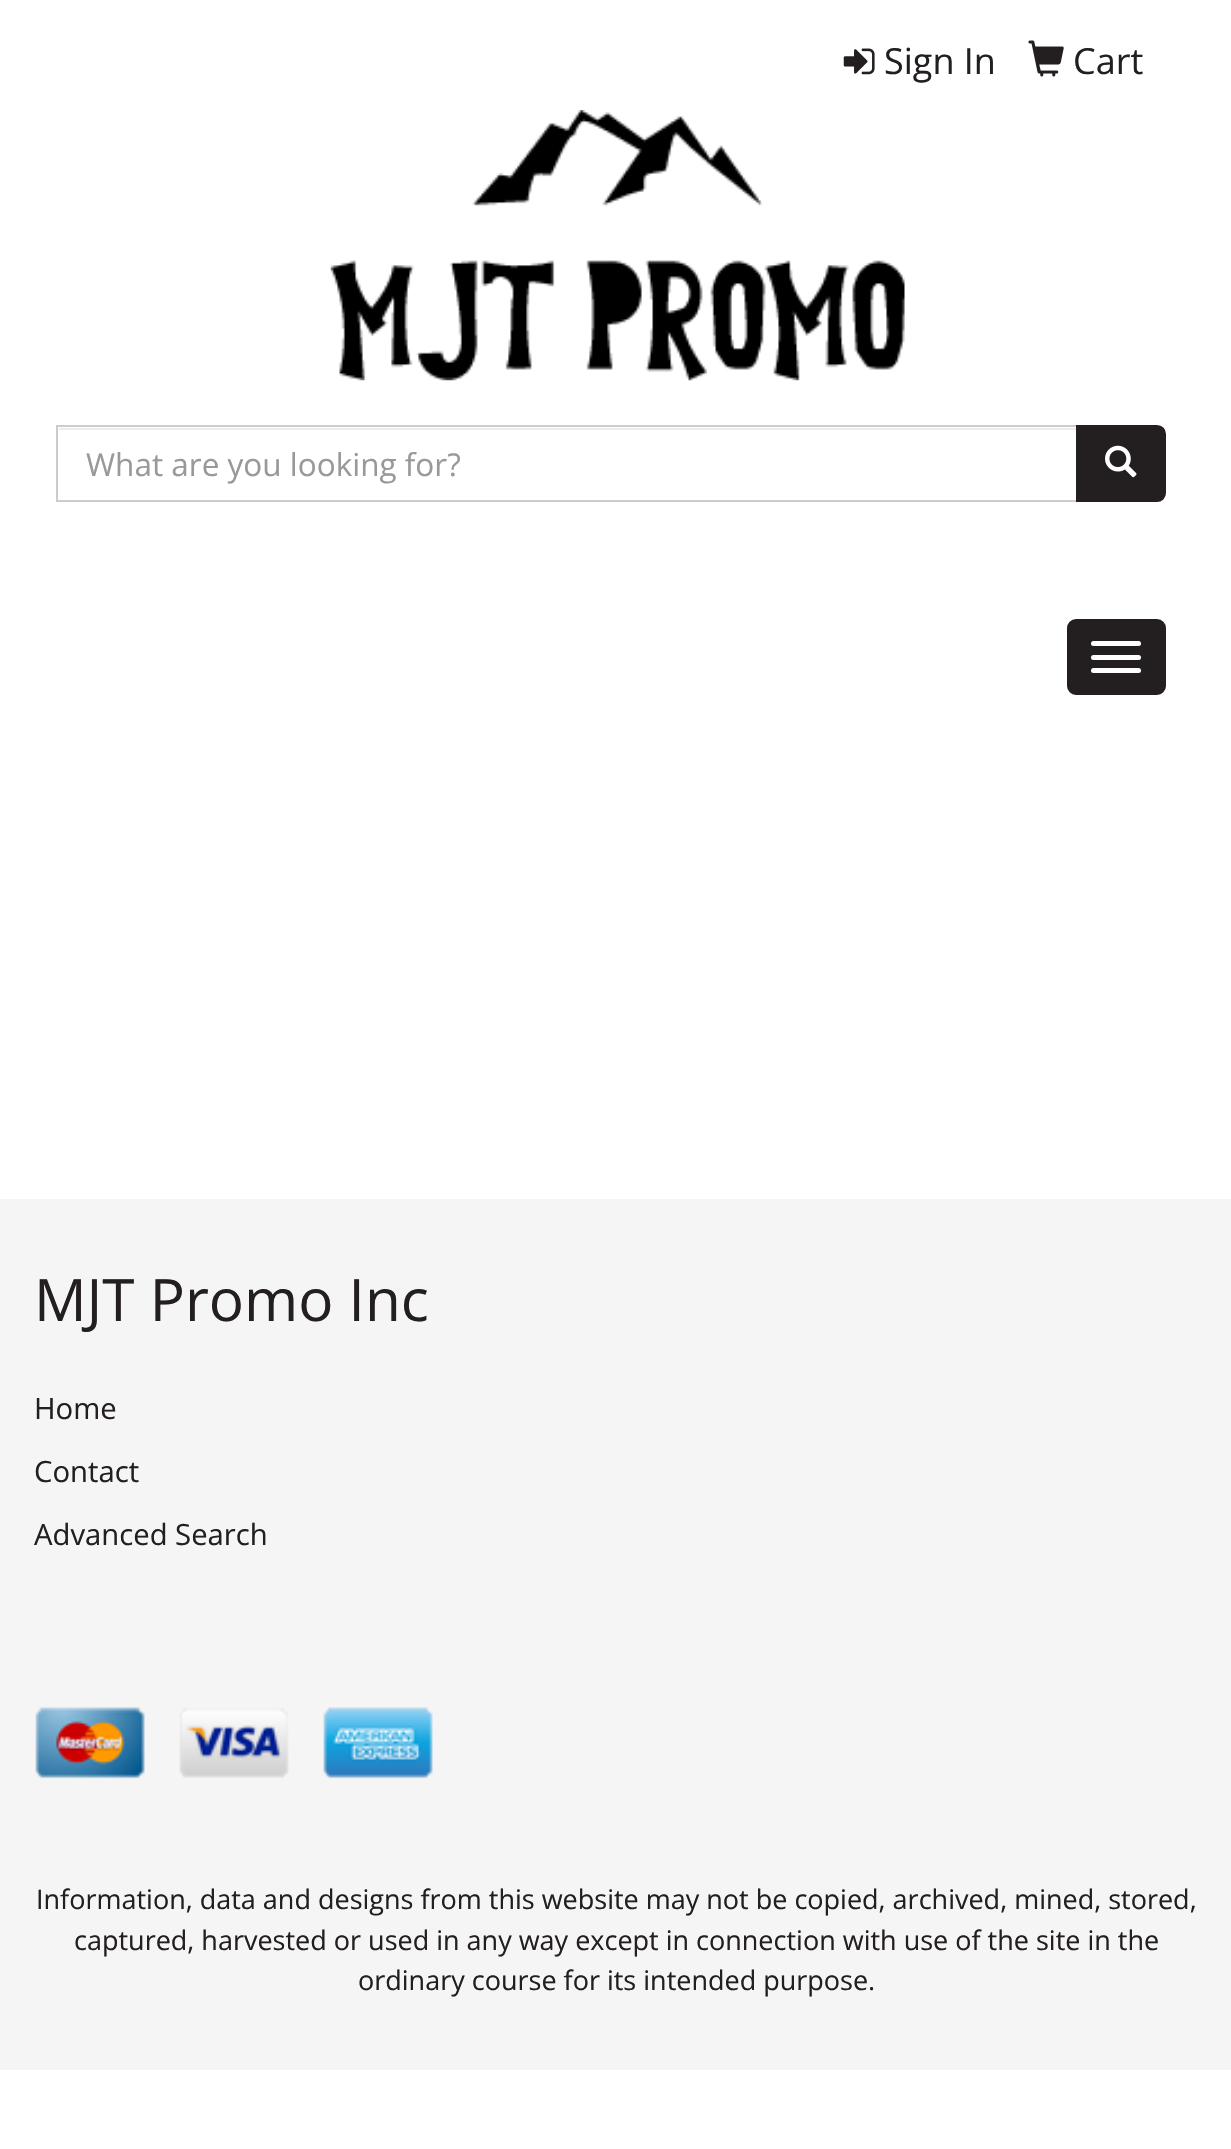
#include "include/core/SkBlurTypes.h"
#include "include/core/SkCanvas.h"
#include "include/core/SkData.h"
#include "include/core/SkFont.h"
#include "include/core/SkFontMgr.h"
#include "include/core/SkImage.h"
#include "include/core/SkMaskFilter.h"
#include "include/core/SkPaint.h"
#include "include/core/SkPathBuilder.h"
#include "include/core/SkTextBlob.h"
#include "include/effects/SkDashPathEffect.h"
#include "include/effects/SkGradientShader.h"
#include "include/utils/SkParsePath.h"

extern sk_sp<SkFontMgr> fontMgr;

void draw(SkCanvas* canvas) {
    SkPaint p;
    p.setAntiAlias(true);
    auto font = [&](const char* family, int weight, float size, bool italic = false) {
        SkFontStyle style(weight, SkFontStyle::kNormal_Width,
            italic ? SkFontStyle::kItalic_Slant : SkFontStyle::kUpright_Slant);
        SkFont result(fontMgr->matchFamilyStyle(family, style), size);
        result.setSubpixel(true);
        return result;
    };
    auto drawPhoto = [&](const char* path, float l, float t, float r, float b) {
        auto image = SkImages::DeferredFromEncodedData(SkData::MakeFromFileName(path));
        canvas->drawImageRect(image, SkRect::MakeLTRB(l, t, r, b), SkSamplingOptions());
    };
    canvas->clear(0xFFFFFFFF);
    drawPhoto("media/1.png", 843, 48, 875, 75);
    auto font1 = font("Open Sans", 400, 36);
    p.setColor(0xFF231F20);
    canvas->drawString("Sign In", 884, 74, font1, p);
    drawPhoto("media/2.png", 1028, 40, 1064, 77);
    canvas->drawString("Cart", 1073, 74, font1, p);
    drawPhoto("media/3.png", 330, 110, 905, 381);
    p.setColor(0xFFECECEC);
    canvas->drawRect(SkRect::MakeLTRB(59, 428, 1076, 430), p);
    p.setStyle(SkPaint::kStroke_Style);
    p.setStrokeWidth(2);
    p.setColor(0xFFCCCCCC);
    canvas->drawRect(SkRect::MakeLTRB(57, 426, 1077, 501), p);
    auto font2 = font("Open Sans", 400, 31.5f);
    p.setStyle(SkPaint::kFill_Style);
    p.setColor(0xFF999999);
    canvas->drawString("What are you looking for?", 86, 476, font2, p);
    p.setColor(0xFF231F20);
    canvas->drawPath(SkPathBuilder().moveTo(1077, 426).lineTo(1157, 426).cubicTo(1161.5f, 426, 1165, 429.5f, 1165, 434).lineTo(1165, 493).cubicTo(1165, 497.5f, 1161.5f, 501, 1157, 501).lineTo(1077, 501).close().detach(), p);
    p.setStyle(SkPaint::kStroke_Style);
    canvas->drawPath(SkPathBuilder().moveTo(1077, 426).lineTo(1157, 426).cubicTo(1161.5f, 426, 1165, 429.5f, 1165, 434).lineTo(1165, 493).cubicTo(1165, 497.5f, 1161.5f, 501, 1157, 501).lineTo(1077, 501).close().detach(), p);
    drawPhoto("media/4.png", 1105, 445, 1137, 478);
    p.setStyle(SkPaint::kFill_Style);
    canvas->drawRoundRect(SkRect::MakeLTRB(1068, 620, 1165, 694), 8, 8, p);
    p.setStyle(SkPaint::kStroke_Style);
    canvas->drawRoundRect(SkRect::MakeLTRB(1068, 620, 1165, 694), 8, 8, p);
    p.setStyle(SkPaint::kFill_Style);
    p.setColor(0xFFFFFFFF);
    canvas->drawRoundRect(SkRect::MakeLTRB(1091, 641, 1141, 646), 2.5f, 2.5f, p);
    canvas->drawRoundRect(SkRect::MakeLTRB(1091, 655, 1141, 660), 2.5f, 2.5f, p);
    canvas->drawRoundRect(SkRect::MakeLTRB(1091, 668, 1141, 673), 2.5f, 2.5f, p);
    p.setColor(0xFFF5F5F5);
    canvas->drawRect(SkRect::MakeLTRB(0, 1199, 1231, 2070), p);
    auto font3 = font("Open Sans", 400, 58.5f);
    p.setColor(0xFF231F20);
    canvas->drawString("MJT Promo Inc", 34, 1321, font3, p);
    auto font4 = font("Open Sans", 400, 29.25f);
    {
        const struct { const char* s; float x, y; } items[] = {
            {"Home", 34, 1419},
            {"Contact", 34, 1482},
            {"Advanced Search", 34, 1545},
        };
        for (auto [s, x, y] : items) {
            canvas->drawString(s, x, y, font4, p);
        }
    }
    drawPhoto("media/5.png", 35, 1707, 145, 1779);
    drawPhoto("media/6.png", 179, 1708, 289, 1778);
    drawPhoto("media/7.png", 323, 1707, 433, 1779);
    auto font5 = font("Open Sans", 400, 27);
    {
        const struct { const char* s; float x, y; } items[] = {
            {"Information, data and designs from this website may not be copied, archived, mined, stored,", 36, 1909},
            {"captured, harvested or used in any way except in connection with use of the site in the", 74, 1950},
            {"ordinary course for its intended purpose.", 358, 1990},
        };
        for (auto [s, x, y] : items) {
            canvas->drawString(s, x, y, font5, p);
        }
    }
}
